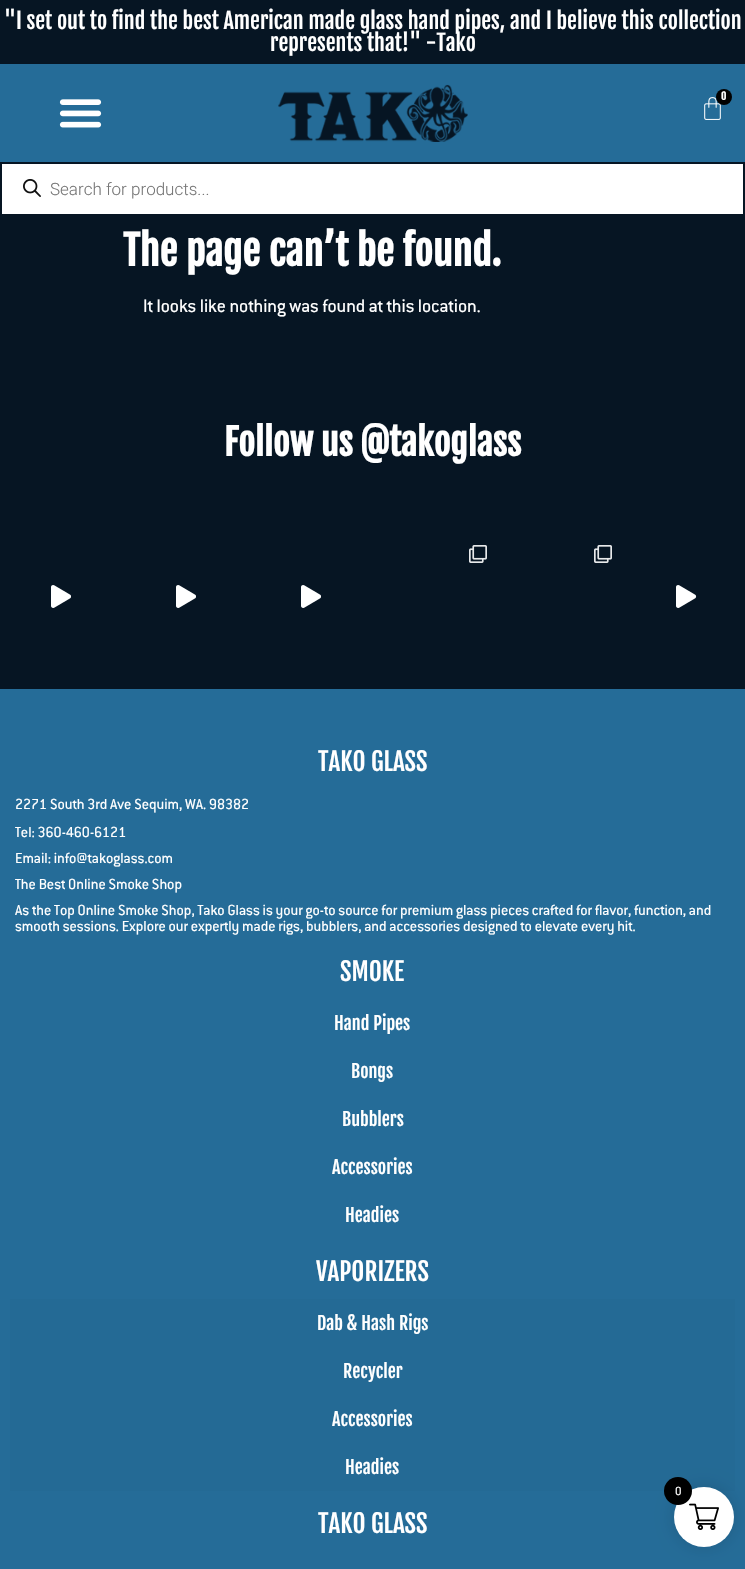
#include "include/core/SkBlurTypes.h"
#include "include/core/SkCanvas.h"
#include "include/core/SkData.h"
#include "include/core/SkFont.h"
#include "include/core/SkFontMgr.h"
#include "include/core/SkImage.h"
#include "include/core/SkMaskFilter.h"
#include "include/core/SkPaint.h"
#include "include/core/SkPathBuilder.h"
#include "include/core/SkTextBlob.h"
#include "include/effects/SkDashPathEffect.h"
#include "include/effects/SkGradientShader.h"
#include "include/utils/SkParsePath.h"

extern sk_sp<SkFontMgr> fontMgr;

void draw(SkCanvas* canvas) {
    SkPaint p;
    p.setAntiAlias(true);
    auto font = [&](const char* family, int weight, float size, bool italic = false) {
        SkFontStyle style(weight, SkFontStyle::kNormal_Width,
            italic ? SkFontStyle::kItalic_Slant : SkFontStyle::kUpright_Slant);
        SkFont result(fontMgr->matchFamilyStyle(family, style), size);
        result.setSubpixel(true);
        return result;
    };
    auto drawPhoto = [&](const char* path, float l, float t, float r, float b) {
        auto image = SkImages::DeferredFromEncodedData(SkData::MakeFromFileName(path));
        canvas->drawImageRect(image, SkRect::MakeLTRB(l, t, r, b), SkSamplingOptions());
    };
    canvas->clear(0xFF061523);
    auto font1 = font("Fjalla One", 400, 22);
    p.setColor(0xFFFFFFFF);
    canvas->drawString("\"I set out to find the best American made glass hand pipes, and I believe this collection", 4, 29, font1, p);
    canvas->drawString("represents that!\" -Tako", 270, 51, font1, p);
    p.setColor(0xFF256C98);
    canvas->drawRect(SkRect::MakeLTRB(0, 64, 745, 162), p);
    drawPhoto("media/1.png", 278, 84, 468, 142);
    drawPhoto("media/2.png", 704, 97, 721, 120);
    p.setColor(0xFF000000);
    canvas->drawCircle(724, 97, 8, p);
    auto font2 = font("Fjalla One", 700, 10);
    p.setColor(0xFFFFFFFF);
    canvas->drawString("0", 721, 100, font2, p);
    drawPhoto("media/3.png", 59, 99, 102, 128);
    canvas->drawRect(SkRect::MakeLTRB(2, 164, 743, 214), p);
    drawPhoto("media/4.png", 23, 179, 41, 197);
    auto font3 = font("Roboto", 300, 17);
    p.setColor(0xFF777777);
    canvas->drawString("Search for products...", 50, 195, font3, p);
    auto font4 = font("Fjalla One", 700, 40);
    p.setColor(0xFFFFFFFF);
    canvas->drawString("The page can’t be found.", 123, 266, font4, p);
    auto font5 = font("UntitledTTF", 400, 20);
    canvas->drawString("It looks like nothing was found at this location.", 143, 312, font5, p);
    auto font6 = font("Fjalla One", 700, 36);
    canvas->drawString("Follow us @takoglass", 224, 456, font6, p);
    drawPhoto("media/5.png", 469, 545, 487, 563);
    drawPhoto("media/5.png", 594, 545, 612, 563);
    drawPhoto("media/6.png", 51, 585, 71, 608);
    drawPhoto("media/6.png", 176, 585, 196, 608);
    drawPhoto("media/6.png", 301, 585, 321, 608);
    drawPhoto("media/7.png", 676, 585, 697, 608);
    p.setColor(0xFF256C98);
    canvas->drawRect(SkRect::MakeLTRB(0, 689, 745, 1569), p);
    auto font7 = font("Fjalla One", 400, 25);
    p.setColor(0xFFFFFFFF);
    canvas->drawString("TAKO GLASS", 318, 771, font7, p);
    auto font8 = font("UntitledTTF", 400, 16);
    {
        const struct { const char* s; float x, y; } items[] = {
            {"2271 South 3rd Ave Sequim, WA. 98382", 15, 809},
            {"Tel: 360-460-6121", 15, 837},
            {"Email: info@takoglass.com", 15, 863},
            {"The Best Online Smoke Shop", 15, 889},
            {"As the Top Online Smoke Shop, Tako Glass is your go-to source for premium glass pieces crafted for flavor, function, and", 15, 915},
            {"smooth sessions. Explore our expertly made rigs, bubblers, and accessories designed to elevate every hit.", 15, 931},
        };
        for (auto [s, x, y] : items) {
            canvas->drawString(s, x, y, font8, p);
        }
    }
    canvas->drawString("SMOKE", 340, 981, font7, p);
    auto font9 = font("Fjalla One", 400, 18);
    {
        const struct { const char* s; float x, y; } items[] = {
            {"Hand Pipes", 334, 1030},
            {"Bongs", 351, 1078},
            {"Bubblers", 342, 1126},
            {"Accessories", 332, 1174},
            {"Headies", 345, 1222},
        };
        for (auto [s, x, y] : items) {
            canvas->drawString(s, x, y, font9, p);
        }
    }
    canvas->drawString("VAPORIZERS", 316, 1281, font7, p);
    p.setColor(0xFF246A95);
    canvas->drawRect(SkRect::MakeLTRB(10, 1299, 735, 1491), p);
    p.setColor(0xFFFFFFFF);
    {
        const struct { const char* s; float x, y; } items[] = {
            {"Dab & Hash Rigs", 317, 1330},
            {"Recycler", 343, 1378},
            {"Accessories", 332, 1426},
            {"Headies", 345, 1474},
        };
        for (auto [s, x, y] : items) {
            canvas->drawString(s, x, y, font9, p);
        }
    }
    canvas->drawString("TAKO GLASS", 318, 1533, font7, p);
    p.setColor(0x1A000000);
    p.setMaskFilter(SkMaskFilter::MakeBlur(kNormal_SkBlurStyle, 7.5f));
    canvas->drawRoundRect(SkRect::MakeLTRB(672, 1485, 736, 1549), 32, 32, p);
    p.setMaskFilter(nullptr);
    p.setColor(0xFFFFFFFF);
    canvas->drawCircle(704, 1517, 30, p);
    drawPhoto("media/8.png", 689, 1503, 719, 1530);
    p.setColor(0xFF000000);
    canvas->drawCircle(678, 1491, 14, p);
    auto font10 = font("UntitledTTF", 400, 13);
    p.setColor(0xFFFFFFFF);
    canvas->drawString("0", 675, 1495, font10, p);
}
